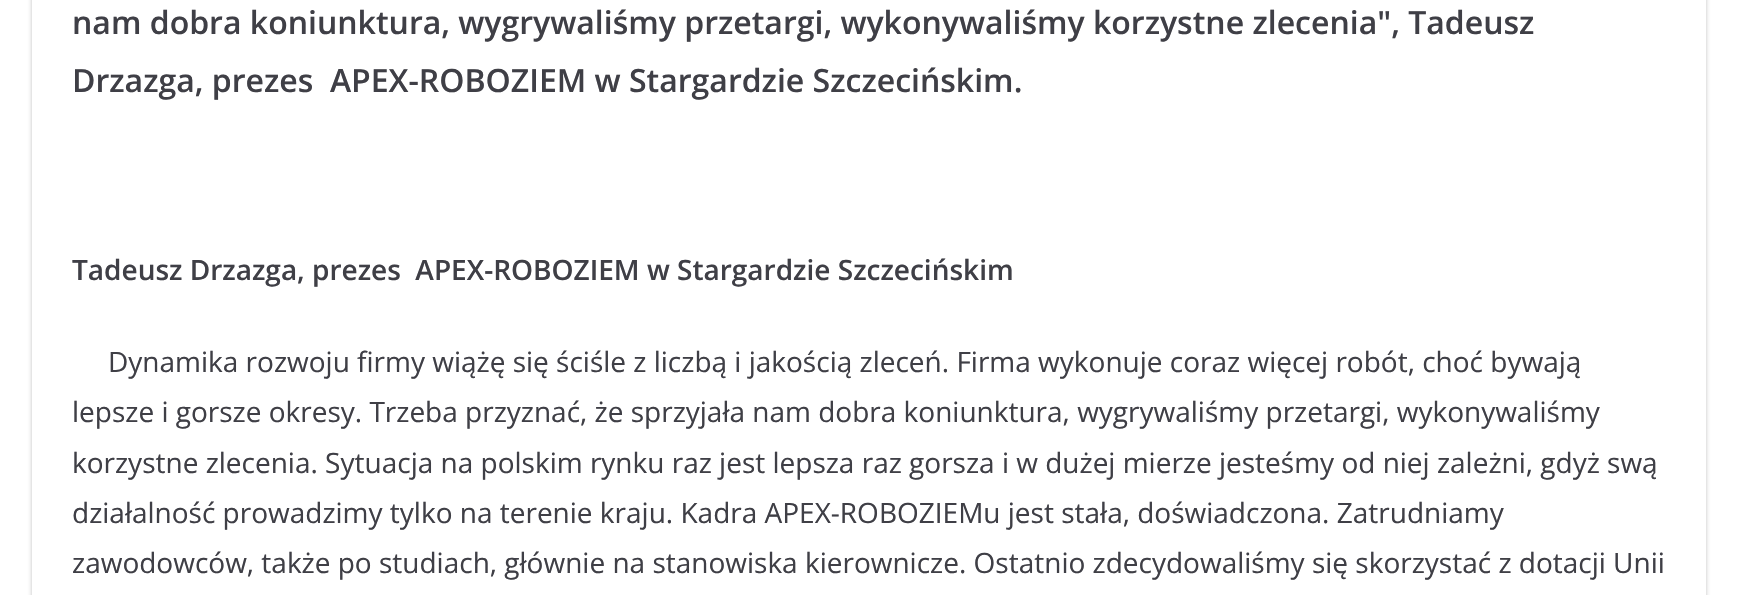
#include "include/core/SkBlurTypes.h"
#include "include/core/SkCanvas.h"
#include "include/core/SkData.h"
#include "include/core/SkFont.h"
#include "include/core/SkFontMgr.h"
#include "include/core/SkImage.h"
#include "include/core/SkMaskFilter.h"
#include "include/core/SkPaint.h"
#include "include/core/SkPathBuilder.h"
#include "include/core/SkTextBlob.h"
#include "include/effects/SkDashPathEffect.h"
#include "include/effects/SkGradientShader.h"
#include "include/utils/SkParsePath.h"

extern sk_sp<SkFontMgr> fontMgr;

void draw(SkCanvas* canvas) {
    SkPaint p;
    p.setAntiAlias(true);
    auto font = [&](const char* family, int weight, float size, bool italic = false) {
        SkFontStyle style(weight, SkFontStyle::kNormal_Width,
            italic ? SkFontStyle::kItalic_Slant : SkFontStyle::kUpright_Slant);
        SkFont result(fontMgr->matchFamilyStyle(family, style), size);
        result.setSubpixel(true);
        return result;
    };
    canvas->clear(0xFFFFFFFF);
    canvas->save();
    canvas->clipPath(SkPathBuilder(SkPathFillType::kEvenOdd).moveTo(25, 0).lineTo(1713, 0).lineTo(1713, 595).lineTo(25, 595).close().moveTo(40, -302).lineTo(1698, -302).cubicTo(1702.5f, -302, 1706, -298.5f, 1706, -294).lineTo(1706, 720).cubicTo(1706, 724.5f, 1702.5f, 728, 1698, 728).lineTo(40, 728).cubicTo(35.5f, 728, 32, 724.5f, 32, 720).lineTo(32, -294).cubicTo(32, -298.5f, 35.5f, -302, 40, -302).close().detach(), true);
    p.setColor(0x3D000000);
    p.setMaskFilter(SkMaskFilter::MakeBlur(kNormal_SkBlurStyle, 2));
    canvas->drawRoundRect(SkRect::MakeLTRB(32, -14, 1706, 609), 8, 8, p);
    p.setMaskFilter(nullptr);
    canvas->restore();
    auto font1 = font("Open Sans", 600, 32);
    p.setColor(0xFF3F3F46);
    canvas->drawString("nam dobra koniunktura, wygrywaliśmy przetargi, wykonywaliśmy korzystne zlecenia\", Tadeusz", 72, 34, font1, p);
    canvas->drawString("Drzazga, prezes  APEX-ROBOZIEM w Stargardzie Szczecińskim.", 72, 92, font1, p);
    auto font2 = font("Open Sans", 600, 28);
    canvas->drawString("Tadeusz Drzazga, prezes  APEX-ROBOZIEM w Stargardzie Szczecińskim", 72, 280, font2, p);
    auto font3 = font("Open Sans", 400, 28);
    {
        const struct { const char* s; float x, y; } items[] = {
            {"Dynamika rozwoju firmy wiążę się ściśle z liczbą i jakością zleceń. Firma wykonuje coraz więcej robót, choć bywają", 108, 372},
            {"lepsze i gorsze okresy. Trzeba przyznać, że sprzyjała nam dobra koniunktura, wygrywaliśmy przetargi, wykonywaliśmy", 72, 422},
            {"korzystne zlecenia. Sytuacja na polskim rynku raz jest lepsza raz gorsza i w dużej mierze jesteśmy od niej zależni, gdyż swą", 72, 473},
            {"działalność prowadzimy tylko na terenie kraju. Kadra APEX-ROBOZIEMu jest stała, doświadczona. Zatrudniamy", 72, 523},
            {"zawodowców, także po studiach, głównie na stanowiska kierownicze. Ostatnio zdecydowaliśmy się skorzystać z dotacji Unii", 72, 573},
        };
        for (auto [s, x, y] : items) {
            canvas->drawString(s, x, y, font3, p);
        }
    }
}
